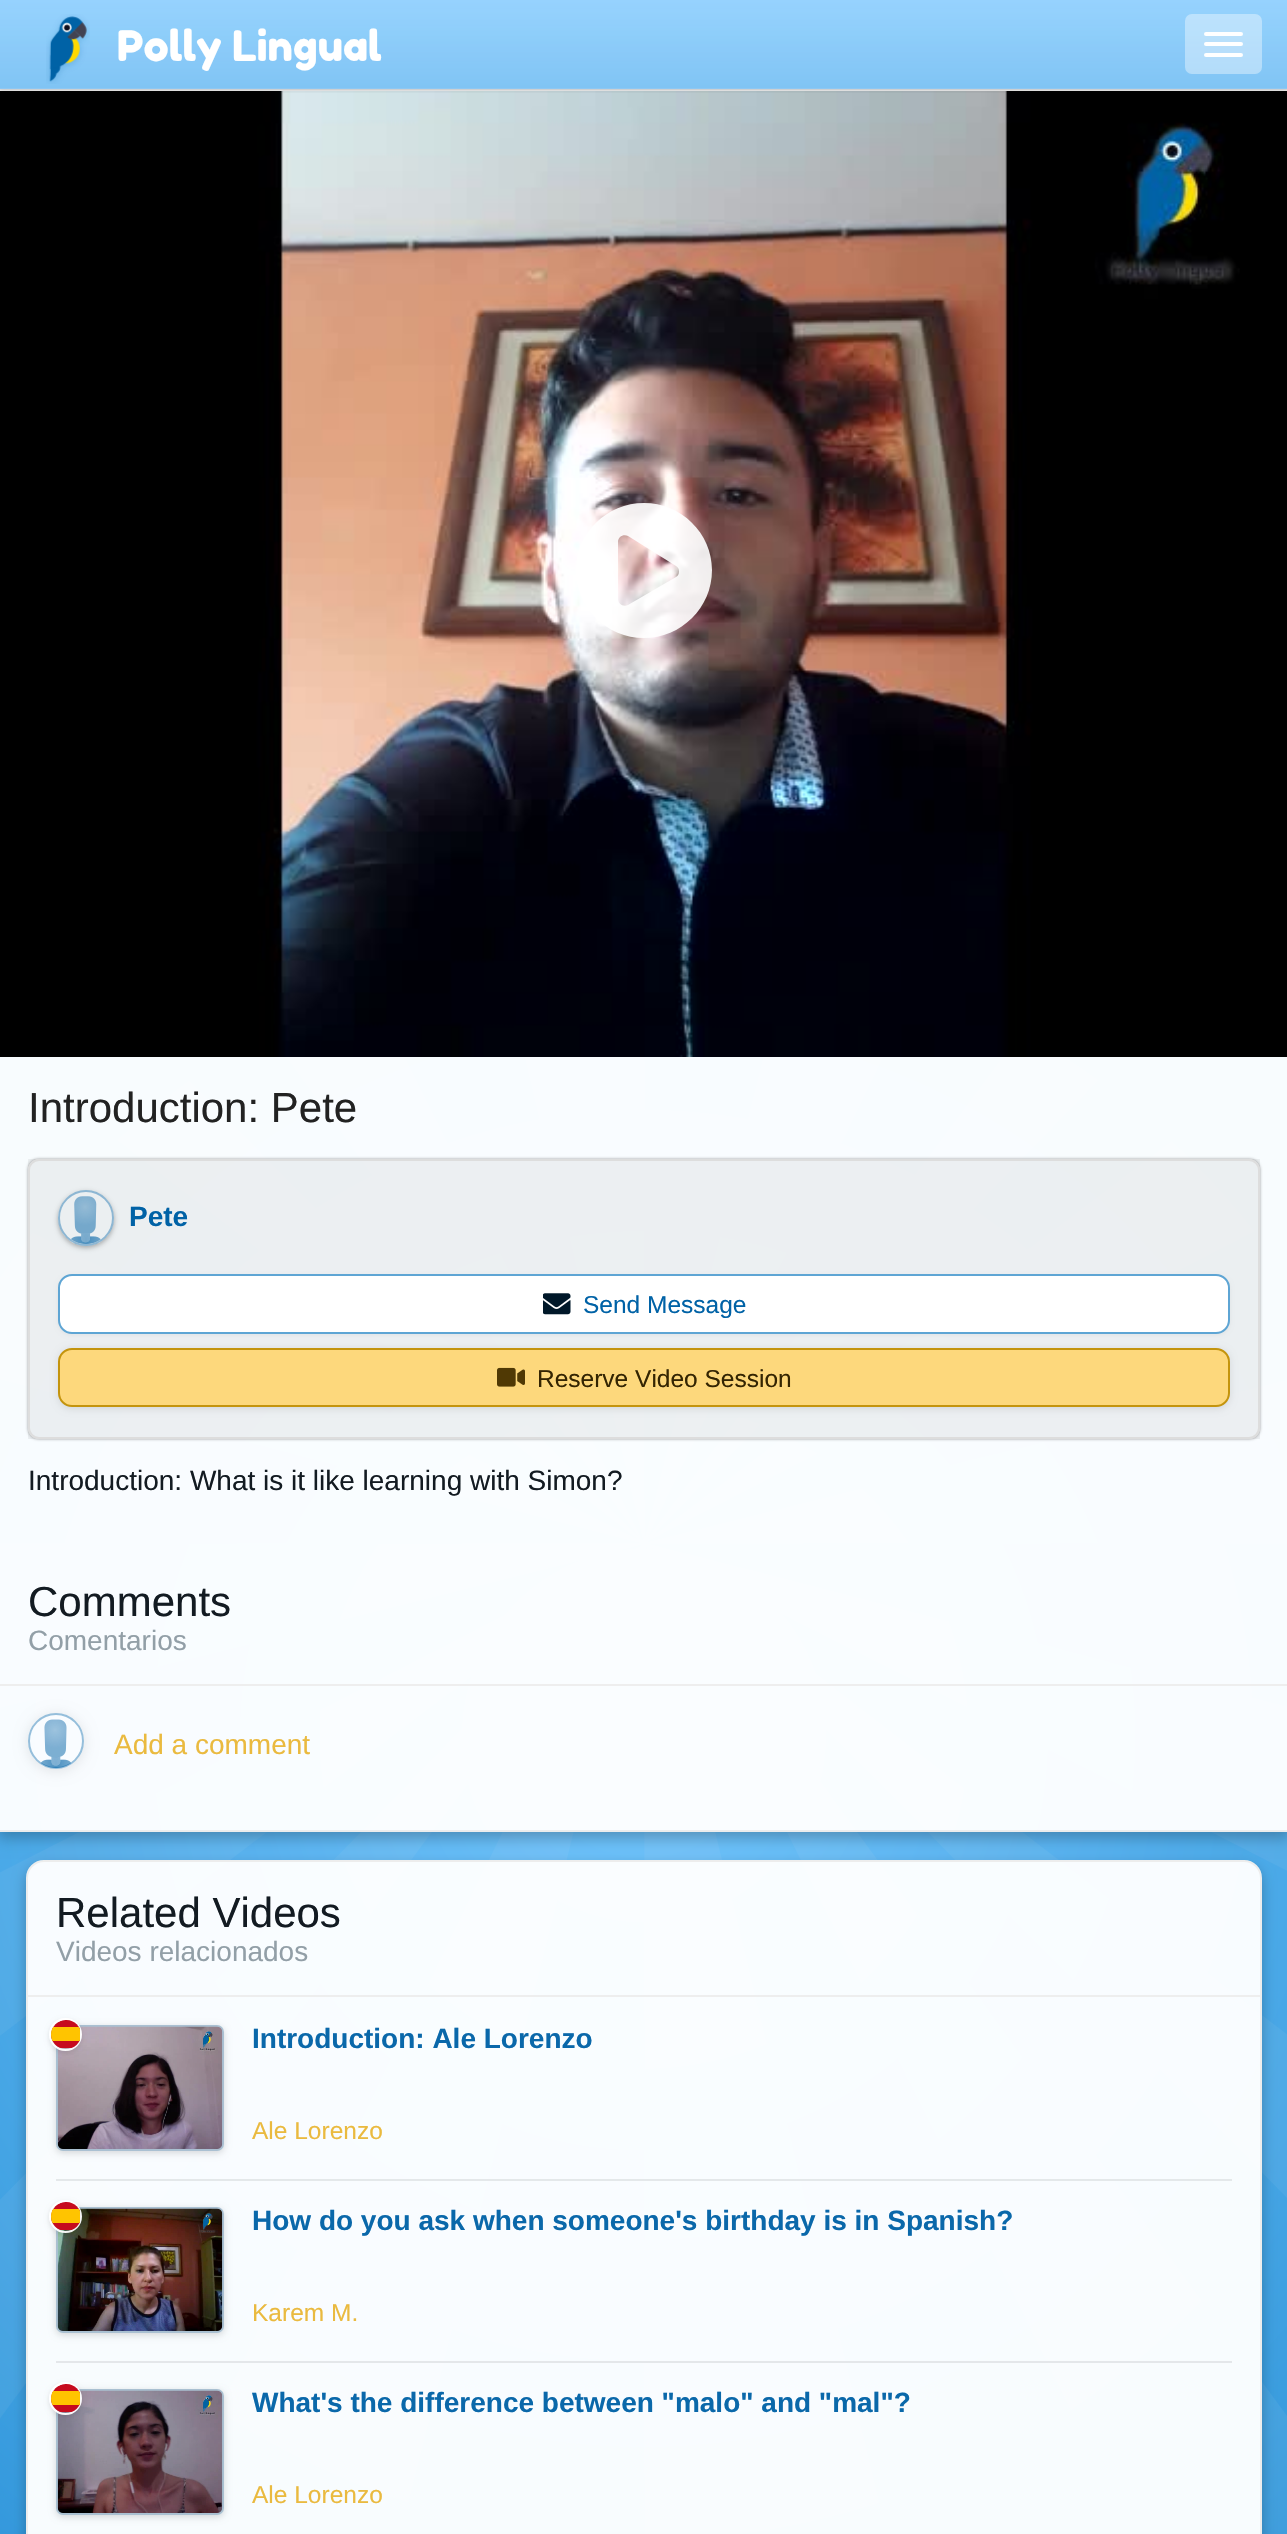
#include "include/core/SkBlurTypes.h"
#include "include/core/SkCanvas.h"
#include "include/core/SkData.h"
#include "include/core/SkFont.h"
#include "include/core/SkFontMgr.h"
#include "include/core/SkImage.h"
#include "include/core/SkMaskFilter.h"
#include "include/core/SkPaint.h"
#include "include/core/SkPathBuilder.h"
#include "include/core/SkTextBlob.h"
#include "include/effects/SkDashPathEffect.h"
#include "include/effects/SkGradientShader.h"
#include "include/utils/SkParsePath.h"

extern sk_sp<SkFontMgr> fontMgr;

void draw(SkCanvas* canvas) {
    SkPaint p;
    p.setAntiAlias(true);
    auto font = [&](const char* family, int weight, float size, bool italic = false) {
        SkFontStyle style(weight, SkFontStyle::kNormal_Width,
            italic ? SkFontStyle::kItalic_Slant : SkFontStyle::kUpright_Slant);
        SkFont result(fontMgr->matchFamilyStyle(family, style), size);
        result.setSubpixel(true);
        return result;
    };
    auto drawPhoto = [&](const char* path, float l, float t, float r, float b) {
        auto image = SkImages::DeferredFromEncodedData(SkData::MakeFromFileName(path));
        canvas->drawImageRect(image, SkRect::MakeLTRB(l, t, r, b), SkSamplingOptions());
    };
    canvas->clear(0xFFFFFFFF);
    drawPhoto("media/1.png", 0, 0, 1287, 89);
    drawPhoto("media/3.png", 0, 1057, 1287, 2534);
    canvas->save();
    canvas->clipPath(SkPathBuilder(SkPathFillType::kEvenOdd).moveTo(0, 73).lineTo(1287, 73).lineTo(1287, 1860).lineTo(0, 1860).close().moveTo(-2, 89).lineTo(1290, 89).lineTo(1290, 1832).lineTo(-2, 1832).close().detach(), true);
    p.setColor(0x40000000);
    p.setMaskFilter(SkMaskFilter::MakeBlur(kNormal_SkBlurStyle, 7));
    canvas->drawRect(SkRect::MakeLTRB(-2, 95, 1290, 1838), p);
    p.setMaskFilter(nullptr);
    canvas->restore();
    p.setColor(0xF5FFFFFF);
    canvas->drawRect(SkRect::MakeLTRB(0, 1057, 1287, 1830), p);
    p.setStyle(SkPaint::kStroke_Style);
    p.setStrokeWidth(2);
    p.setColor(0xFFEDEDED);
    canvas->drawRect(SkRect::MakeLTRB(-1, 90, 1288, 1831), p);
    drawPhoto("media/4.png", 0, 91, 1287, 1057);
    canvas->save();
    canvas->clipRect(SkRect::MakeLTRB(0, 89, 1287, 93));
    p.setStyle(SkPaint::kFill_Style);
    p.setColor(0x1A000000);
    p.setMaskFilter(SkMaskFilter::MakeBlur(kNormal_SkBlurStyle, 2));
    canvas->drawRect(SkRect::MakeLTRB(0, 2, 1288, 91), p);
    p.setMaskFilter(nullptr);
    canvas->restore();
    {
        const SkColor colors[] = {0xFF80C4F4, 0xFA98D4FF};
        const float stops[] = {0, 1};
        const SkPoint ends[] = {{644, 88}, {644, 0}};
        p.setShader(SkGradientShader::MakeLinear(ends, colors, stops, 2, SkTileMode::kClamp));
        p.setAlpha(255);
    }
    canvas->drawRect(SkRect::MakeLTRB(0, 0, 1287, 88), p);
    {
        const SkColor colors[] = {0xFF80C4F4, 0xFA98D4FF};
        const float stops[] = {0, 1};
        const SkPoint ends[] = {{644, 175}, {644, 88}};
        p.setShader(SkGradientShader::MakeLinear(ends, colors, stops, 2, SkTileMode::kClamp));
        p.setAlpha(255);
    }
    canvas->drawRect(SkRect::MakeLTRB(0, 88, 1287, 89), p);
    p.setShader(nullptr);
    p.setColor(0x0F002947);
    canvas->drawRect(SkRect::MakeLTRB(0, 88, 1287, 90), p);
    drawPhoto("media/2.png", 46, 14, 90, 84);
    auto font1 = font("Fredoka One", 400, 42);
    p.setColor(0xFFFFFFFF);
    canvas->drawString("Polly Lingual", 117, 61, font1, p);
    p.setColor(0x61FFFFFF);
    canvas->drawRoundRect(SkRect::MakeLTRB(1185, 14, 1262, 74), 7, 7, p);
    p.setColor(0xFFFFFFFF);
    canvas->drawRoundRect(SkRect::MakeLTRB(1204, 32, 1243, 36), 2, 2, p);
    canvas->drawRoundRect(SkRect::MakeLTRB(1204, 42, 1243, 46), 2, 2, p);
    canvas->drawRoundRect(SkRect::MakeLTRB(1204, 53, 1243, 57), 2, 2, p);
    p.setColor(0xE6FFFFFF);
    canvas->drawPath(SkPathBuilder().moveTo(644, 503).cubicTo(607, 503, 576, 533, 576, 570).cubicTo(576, 608, 607, 638, 644, 638).cubicTo(681, 638, 712, 608, 712, 570).cubicTo(712, 533, 681, 503, 644, 503).close().moveTo(676, 577).lineTo(628, 605).cubicTo(623, 607, 618, 604, 618, 599).lineTo(618, 542).cubicTo(618, 537, 623, 534, 628, 536).lineTo(676, 566).cubicTo(680, 568, 680, 575, 676, 577).close().detach(), p);
    auto font2 = font("Liberation Sans", 400, 42);
    p.setColor(0xFF222222);
    canvas->drawString("Introduction: Pete", 28, 1122, font2, p);
    canvas->save();
    canvas->clipPath(SkPathBuilder(SkPathFillType::kEvenOdd).moveTo(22, 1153).lineTo(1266, 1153).lineTo(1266, 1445).lineTo(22, 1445).close().moveTo(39, 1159).lineTo(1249, 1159).cubicTo(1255, 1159, 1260, 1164, 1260, 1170).lineTo(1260, 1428).cubicTo(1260, 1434, 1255, 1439, 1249, 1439).lineTo(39, 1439).cubicTo(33, 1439, 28, 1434, 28, 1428).lineTo(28, 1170).cubicTo(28, 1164, 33, 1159, 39, 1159).close().detach(), true);
    p.setColor(0x66000000);
    p.setMaskFilter(SkMaskFilter::MakeBlur(kNormal_SkBlurStyle, 1.5f));
    canvas->drawRoundRect(SkRect::MakeLTRB(28, 1159, 1260, 1439), 11, 11, p);
    p.setMaskFilter(nullptr);
    canvas->restore();
    p.setColor(0x0D000000);
    canvas->drawRect(SkRect::MakeLTRB(28, 1159, 1260, 1439), p);
    p.setStyle(SkPaint::kStroke_Style);
    p.setColor(0xFFDDDDDD);
    canvas->drawRoundRect(SkRect::MakeLTRB(29, 1160, 1259, 1438), 10, 10, p);
    canvas->save();
    canvas->clipPath(SkPathBuilder(SkPathFillType::kEvenOdd).moveTo(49, 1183).lineTo(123, 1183).lineTo(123, 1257).lineTo(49, 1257).close().moveTo(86, 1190).cubicTo(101.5f, 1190, 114, 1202.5f, 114, 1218).cubicTo(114, 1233.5f, 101.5f, 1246, 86, 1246).cubicTo(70.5f, 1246, 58, 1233.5f, 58, 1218).cubicTo(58, 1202.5f, 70.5f, 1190, 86, 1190).close().detach(), true);
    p.setStyle(SkPaint::kFill_Style);
    p.setColor(0x4D000000);
    p.setMaskFilter(SkMaskFilter::MakeBlur(kNormal_SkBlurStyle, 2.5f));
    canvas->drawRoundRect(SkRect::MakeLTRB(58, 1192, 114, 1248), 28, 28, p);
    p.setMaskFilter(nullptr);
    canvas->restore();
    p.setStyle(SkPaint::kStroke_Style);
    p.setColor(0x660062A6);
    canvas->drawCircle(86, 1218, 27, p);
    drawPhoto("media/5.png", 71, 1196, 101, 1244);
    auto font3 = font("Liberation Sans", 700, 28);
    p.setStyle(SkPaint::kFill_Style);
    p.setColor(0xFF0062A6);
    canvas->drawString("Pete", 129, 1226, font3, p);
    p.setColor(0x0D000000);
    p.setMaskFilter(SkMaskFilter::MakeBlur(kNormal_SkBlurStyle, 2));
    canvas->drawRoundRect(SkRect::MakeLTRB(58, 1276, 1230, 1335), 14, 14, p);
    p.setMaskFilter(nullptr);
    p.setColor(0xFFFFFFFF);
    canvas->drawRoundRect(SkRect::MakeLTRB(59, 1275, 1229, 1333), 13, 13, p);
    p.setStyle(SkPaint::kStroke_Style);
    p.setColor(0xFF5EA5D4);
    canvas->drawRoundRect(SkRect::MakeLTRB(59, 1275, 1229, 1333), 13, 13, p);
    drawPhoto("media/6.png", 543, 1293, 571, 1315);
    auto font4 = font("Liberation Sans", 400, 24.5f);
    p.setStyle(SkPaint::kFill_Style);
    p.setColor(0xFF0062A6);
    canvas->drawString("Send Message", 583, 1313, font4, p);
    p.setColor(0x1A000000);
    p.setMaskFilter(SkMaskFilter::MakeBlur(kNormal_SkBlurStyle, 3.5f));
    canvas->drawRoundRect(SkRect::MakeLTRB(58, 1349, 1230, 1409), 14, 14, p);
    p.setMaskFilter(nullptr);
    p.setColor(0xFFFDD87C);
    canvas->drawRoundRect(SkRect::MakeLTRB(59, 1349, 1229, 1406), 13, 13, p);
    p.setStyle(SkPaint::kStroke_Style);
    p.setColor(0xFFC4940D);
    canvas->drawRoundRect(SkRect::MakeLTRB(59, 1349, 1229, 1406), 13, 13, p);
    drawPhoto("media/7.png", 497, 1367, 525, 1387);
    p.setStyle(SkPaint::kFill_Style);
    p.setColor(0xFF342502);
    canvas->drawString("Reserve Video Session", 537, 1387, font4, p);
    auto font5 = font("Liberation Sans", 400, 28);
    p.setColor(0xFF131B22);
    canvas->drawString("Introduction: What is it like learning with Simon?", 28, 1490, font5, p);
    canvas->drawString("Comments", 28, 1616, font2, p);
    p.setColor(0xFFEEEEEE);
    canvas->drawRect(SkRect::MakeLTRB(0, 1684, 1287, 1686), p);
    p.setColor(0xFF929FA7);
    canvas->drawString("Comentarios", 28, 1650, font5, p);
    canvas->save();
    canvas->clipPath(SkPathBuilder(SkPathFillType::kEvenOdd).moveTo(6, 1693).lineTo(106, 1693).lineTo(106, 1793).lineTo(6, 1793).close().moveTo(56, 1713).cubicTo(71.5f, 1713, 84, 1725.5f, 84, 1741).cubicTo(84, 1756.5f, 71.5f, 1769, 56, 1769).cubicTo(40.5f, 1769, 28, 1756.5f, 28, 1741).cubicTo(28, 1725.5f, 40.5f, 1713, 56, 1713).close().detach(), true);
    p.setColor(0x1A000000);
    p.setMaskFilter(SkMaskFilter::MakeBlur(kNormal_SkBlurStyle, 7));
    canvas->drawRoundRect(SkRect::MakeLTRB(28, 1715, 84, 1771), 28, 28, p);
    p.setMaskFilter(nullptr);
    canvas->restore();
    p.setStyle(SkPaint::kStroke_Style);
    p.setColor(0x660062A6);
    canvas->drawCircle(56, 1741, 27, p);
    drawPhoto("media/8.png", 41, 1719, 71, 1768);
    p.setStyle(SkPaint::kFill_Style);
    p.setColor(0xFFEABA3F);
    canvas->drawString("Add a comment", 114, 1754, font5, p);
    canvas->save();
    canvas->clipPath(SkPathBuilder(SkPathFillType::kEvenOdd).moveTo(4, 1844).lineTo(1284, 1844).lineTo(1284, 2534).lineTo(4, 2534).close().moveTo(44, 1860).lineTo(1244, 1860).cubicTo(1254, 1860, 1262, 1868, 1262, 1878).lineTo(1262, 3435).cubicTo(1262, 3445, 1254, 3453, 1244, 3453).lineTo(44, 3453).cubicTo(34, 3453, 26, 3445, 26, 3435).lineTo(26, 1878).cubicTo(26, 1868, 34, 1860, 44, 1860).close().detach(), true);
    p.setColor(0x40000000);
    p.setMaskFilter(SkMaskFilter::MakeBlur(kNormal_SkBlurStyle, 7));
    canvas->drawRoundRect(SkRect::MakeLTRB(26, 1866, 1262, 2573), 18, 18, p);
    p.setMaskFilter(nullptr);
    canvas->restore();
    p.setColor(0xF5FFFFFF);
    canvas->drawRoundRect(SkRect::MakeLTRB(27, 1861, 1261, 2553), 17, 17, p);
    p.setStyle(SkPaint::kStroke_Style);
    p.setColor(0xFFEDEDED);
    canvas->drawRoundRect(SkRect::MakeLTRB(27, 1861, 1261, 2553), 17, 17, p);
    p.setStyle(SkPaint::kFill_Style);
    p.setColor(0xFF131B22);
    canvas->drawString("Related Videos", 56, 1927, font2, p);
    p.setColor(0xFFEEEEEE);
    canvas->drawRect(SkRect::MakeLTRB(28, 1995, 1260, 1997), p);
    p.setColor(0xFF929FA7);
    canvas->drawString("Videos relacionados", 56, 1961, font5, p);
    p.setColor(0xFFE4E8EA);
    canvas->drawRect(SkRect::MakeLTRB(56, 2179, 1232, 2181), p);
    canvas->save();
    canvas->clipPath(SkPathBuilder(SkPathFillType::kEvenOdd).moveTo(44, 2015).lineTo(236, 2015).lineTo(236, 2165).lineTo(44, 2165).close().moveTo(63, 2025).lineTo(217, 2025).cubicTo(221, 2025, 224, 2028, 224, 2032).lineTo(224, 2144).cubicTo(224, 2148, 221, 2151, 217, 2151).lineTo(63, 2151).cubicTo(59, 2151, 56, 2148, 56, 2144).lineTo(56, 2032).cubicTo(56, 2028, 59, 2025, 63, 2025).close().detach(), true);
    p.setColor(0x26000000);
    p.setMaskFilter(SkMaskFilter::MakeBlur(kNormal_SkBlurStyle, 3.5f));
    canvas->drawRoundRect(SkRect::MakeLTRB(56, 2027, 224, 2153), 7, 7, p);
    p.setMaskFilter(nullptr);
    canvas->restore();
    p.setColor(0x3D0062A6);
    canvas->drawRoundRect(SkRect::MakeLTRB(56, 2025, 224, 2151), 7, 7, p);
    p.setStyle(SkPaint::kStroke_Style);
    p.setColor(0x1A000000);
    canvas->drawRoundRect(SkRect::MakeLTRB(57, 2026, 223, 2150), 6, 6, p);
    drawPhoto("media/9.png", 57, 2026, 223, 2149);
    canvas->save();
    canvas->clipPath(SkPathBuilder(SkPathFillType::kEvenOdd).moveTo(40, 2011).lineTo(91, 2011).lineTo(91, 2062).lineTo(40, 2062).close().moveTo(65.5f, 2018).cubicTo(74.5f, 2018, 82, 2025.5f, 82, 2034.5f).cubicTo(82, 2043.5f, 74.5f, 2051, 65.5f, 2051).cubicTo(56.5f, 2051, 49, 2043.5f, 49, 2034.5f).cubicTo(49, 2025.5f, 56.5f, 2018, 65.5f, 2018).close().detach(), true);
    p.setStyle(SkPaint::kFill_Style);
    p.setMaskFilter(SkMaskFilter::MakeBlur(kNormal_SkBlurStyle, 2.5f));
    canvas->drawRoundRect(SkRect::MakeLTRB(49, 2020, 82, 2053), 16.5f, 16.5f, p);
    p.setMaskFilter(nullptr);
    canvas->restore();
    p.setStyle(SkPaint::kStroke_Style);
    p.setColor(0xF0FFFFFF);
    canvas->drawCircle(65.5f, 2034.5f, 15.5f, p);
    canvas->save();
    canvas->clipPath(SkPathBuilder().moveTo(65.5f, 2020).lineTo(66.5f, 2020).cubicTo(74.5f, 2020, 81, 2026.5f, 81, 2034.5f).cubicTo(81, 2042.5f, 74.5f, 2049, 66.5f, 2049).lineTo(65.5f, 2049).cubicTo(57.5f, 2049, 51, 2042.5f, 51, 2034.5f).cubicTo(51, 2026.5f, 57.5f, 2020, 65.5f, 2020).close().detach(), true);
    p.setStyle(SkPaint::kFill_Style);
    p.setColor(0xFFC60B1E);
    canvas->drawPath(SkPathBuilder().moveTo(65.5f, 2020).lineTo(80, 2020).lineTo(80, 2048).lineTo(51, 2048).lineTo(51, 2034.5f).cubicTo(51, 2026.5f, 57.5f, 2020, 65.5f, 2020).close().detach(), p);
    p.setColor(0xFFFFC400);
    canvas->drawRect(SkRect::MakeLTRB(51, 2027, 80, 2041), p);
    canvas->restore();
    p.setColor(0xFF0A68AA);
    canvas->drawString("Introduction: Ale Lorenzo", 252, 2048, font3, p);
    p.setColor(0xFFEABA3F);
    canvas->drawString("Ale Lorenzo", 252, 2139, font4, p);
    p.setColor(0xFFE4E7EA);
    canvas->drawRect(SkRect::MakeLTRB(56, 2361, 1232, 2363), p);
    canvas->save();
    canvas->clipPath(SkPathBuilder(SkPathFillType::kEvenOdd).moveTo(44, 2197).lineTo(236, 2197).lineTo(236, 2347).lineTo(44, 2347).close().moveTo(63, 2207).lineTo(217, 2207).cubicTo(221, 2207, 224, 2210, 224, 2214).lineTo(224, 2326).cubicTo(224, 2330, 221, 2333, 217, 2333).lineTo(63, 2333).cubicTo(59, 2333, 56, 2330, 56, 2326).lineTo(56, 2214).cubicTo(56, 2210, 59, 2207, 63, 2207).close().detach(), true);
    p.setColor(0x26000000);
    p.setMaskFilter(SkMaskFilter::MakeBlur(kNormal_SkBlurStyle, 3.5f));
    canvas->drawRoundRect(SkRect::MakeLTRB(56, 2209, 224, 2335), 7, 7, p);
    p.setMaskFilter(nullptr);
    canvas->restore();
    p.setColor(0x3D0062A6);
    canvas->drawRoundRect(SkRect::MakeLTRB(56, 2207, 224, 2333), 7, 7, p);
    p.setStyle(SkPaint::kStroke_Style);
    p.setColor(0x1A000000);
    canvas->drawRoundRect(SkRect::MakeLTRB(57, 2208, 223, 2332), 6, 6, p);
    drawPhoto("media/10.png", 57, 2208, 223, 2331);
    canvas->save();
    canvas->clipPath(SkPathBuilder(SkPathFillType::kEvenOdd).moveTo(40, 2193).lineTo(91, 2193).lineTo(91, 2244).lineTo(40, 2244).close().moveTo(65.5f, 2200).cubicTo(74.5f, 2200, 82, 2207.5f, 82, 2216.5f).cubicTo(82, 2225.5f, 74.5f, 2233, 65.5f, 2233).cubicTo(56.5f, 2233, 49, 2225.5f, 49, 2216.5f).cubicTo(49, 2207.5f, 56.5f, 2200, 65.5f, 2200).close().detach(), true);
    p.setStyle(SkPaint::kFill_Style);
    p.setMaskFilter(SkMaskFilter::MakeBlur(kNormal_SkBlurStyle, 2.5f));
    canvas->drawRoundRect(SkRect::MakeLTRB(49, 2202, 82, 2235), 16.5f, 16.5f, p);
    p.setMaskFilter(nullptr);
    canvas->restore();
    p.setStyle(SkPaint::kStroke_Style);
    p.setColor(0xF0FFFFFF);
    canvas->drawCircle(65.5f, 2216.5f, 15.5f, p);
    canvas->save();
    canvas->clipPath(SkPathBuilder().moveTo(65.5f, 2202).lineTo(66.5f, 2202).cubicTo(74.5f, 2202, 81, 2208.5f, 81, 2216.5f).cubicTo(81, 2224.5f, 74.5f, 2231, 66.5f, 2231).lineTo(65.5f, 2231).cubicTo(57.5f, 2231, 51, 2224.5f, 51, 2216.5f).cubicTo(51, 2208.5f, 57.5f, 2202, 65.5f, 2202).close().detach(), true);
    p.setStyle(SkPaint::kFill_Style);
    p.setColor(0xFFC60B1E);
    canvas->drawPath(SkPathBuilder().moveTo(65.5f, 2202).lineTo(80, 2202).lineTo(80, 2230).lineTo(51, 2230).lineTo(51, 2216.5f).cubicTo(51, 2208.5f, 57.5f, 2202, 65.5f, 2202).close().detach(), p);
    p.setColor(0xFFFFC400);
    canvas->drawRect(SkRect::MakeLTRB(51, 2209, 80, 2223), p);
    canvas->restore();
    p.setColor(0xFF0A68AA);
    canvas->drawString("How do you ask when someone's birthday is in Spanish?", 252, 2230, font3, p);
    p.setColor(0xFFEABA3F);
    canvas->drawString("Karem M.", 252, 2321, font4, p);
    canvas->save();
    canvas->clipPath(SkPathBuilder(SkPathFillType::kEvenOdd).moveTo(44, 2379).lineTo(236, 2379).lineTo(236, 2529).lineTo(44, 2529).close().moveTo(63, 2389).lineTo(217, 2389).cubicTo(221, 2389, 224, 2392, 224, 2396).lineTo(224, 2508).cubicTo(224, 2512, 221, 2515, 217, 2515).lineTo(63, 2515).cubicTo(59, 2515, 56, 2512, 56, 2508).lineTo(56, 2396).cubicTo(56, 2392, 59, 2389, 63, 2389).close().detach(), true);
    p.setColor(0x26000000);
    p.setMaskFilter(SkMaskFilter::MakeBlur(kNormal_SkBlurStyle, 3.5f));
    canvas->drawRoundRect(SkRect::MakeLTRB(56, 2391, 224, 2517), 7, 7, p);
    p.setMaskFilter(nullptr);
    canvas->restore();
    p.setColor(0x3D0062A6);
    canvas->drawRoundRect(SkRect::MakeLTRB(56, 2389, 224, 2515), 7, 7, p);
    p.setStyle(SkPaint::kStroke_Style);
    p.setColor(0x1A000000);
    canvas->drawRoundRect(SkRect::MakeLTRB(57, 2390, 223, 2514), 6, 6, p);
    drawPhoto("media/11.png", 57, 2390, 223, 2513);
    canvas->save();
    canvas->clipPath(SkPathBuilder(SkPathFillType::kEvenOdd).moveTo(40, 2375).lineTo(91, 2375).lineTo(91, 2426).lineTo(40, 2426).close().moveTo(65.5f, 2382).cubicTo(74.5f, 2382, 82, 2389.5f, 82, 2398.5f).cubicTo(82, 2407.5f, 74.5f, 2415, 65.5f, 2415).cubicTo(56.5f, 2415, 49, 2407.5f, 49, 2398.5f).cubicTo(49, 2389.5f, 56.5f, 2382, 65.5f, 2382).close().detach(), true);
    p.setStyle(SkPaint::kFill_Style);
    p.setMaskFilter(SkMaskFilter::MakeBlur(kNormal_SkBlurStyle, 2.5f));
    canvas->drawRoundRect(SkRect::MakeLTRB(49, 2384, 82, 2417), 16.5f, 16.5f, p);
    p.setMaskFilter(nullptr);
    canvas->restore();
    p.setStyle(SkPaint::kStroke_Style);
    p.setColor(0xF0FFFFFF);
    canvas->drawCircle(65.5f, 2398.5f, 15.5f, p);
    canvas->save();
    canvas->clipPath(SkPathBuilder().moveTo(65.5f, 2384).lineTo(66.5f, 2384).cubicTo(74.5f, 2384, 81, 2390.5f, 81, 2398.5f).cubicTo(81, 2406.5f, 74.5f, 2413, 66.5f, 2413).lineTo(65.5f, 2413).cubicTo(57.5f, 2413, 51, 2406.5f, 51, 2398.5f).cubicTo(51, 2390.5f, 57.5f, 2384, 65.5f, 2384).close().detach(), true);
    p.setStyle(SkPaint::kFill_Style);
    p.setColor(0xFFC60B1E);
    canvas->drawPath(SkPathBuilder().moveTo(65.5f, 2384).lineTo(80, 2384).lineTo(80, 2412).lineTo(51, 2412).lineTo(51, 2398.5f).cubicTo(51, 2390.5f, 57.5f, 2384, 65.5f, 2384).close().detach(), p);
    p.setColor(0xFFFFC400);
    canvas->drawRect(SkRect::MakeLTRB(51, 2391, 80, 2405), p);
    canvas->restore();
    p.setColor(0xFF0A68AA);
    canvas->drawString("What's the difference between \"malo\" and \"mal\"?", 252, 2412, font3, p);
    p.setColor(0xFFEABA3F);
    canvas->drawString("Ale Lorenzo", 252, 2503, font4, p);
}
